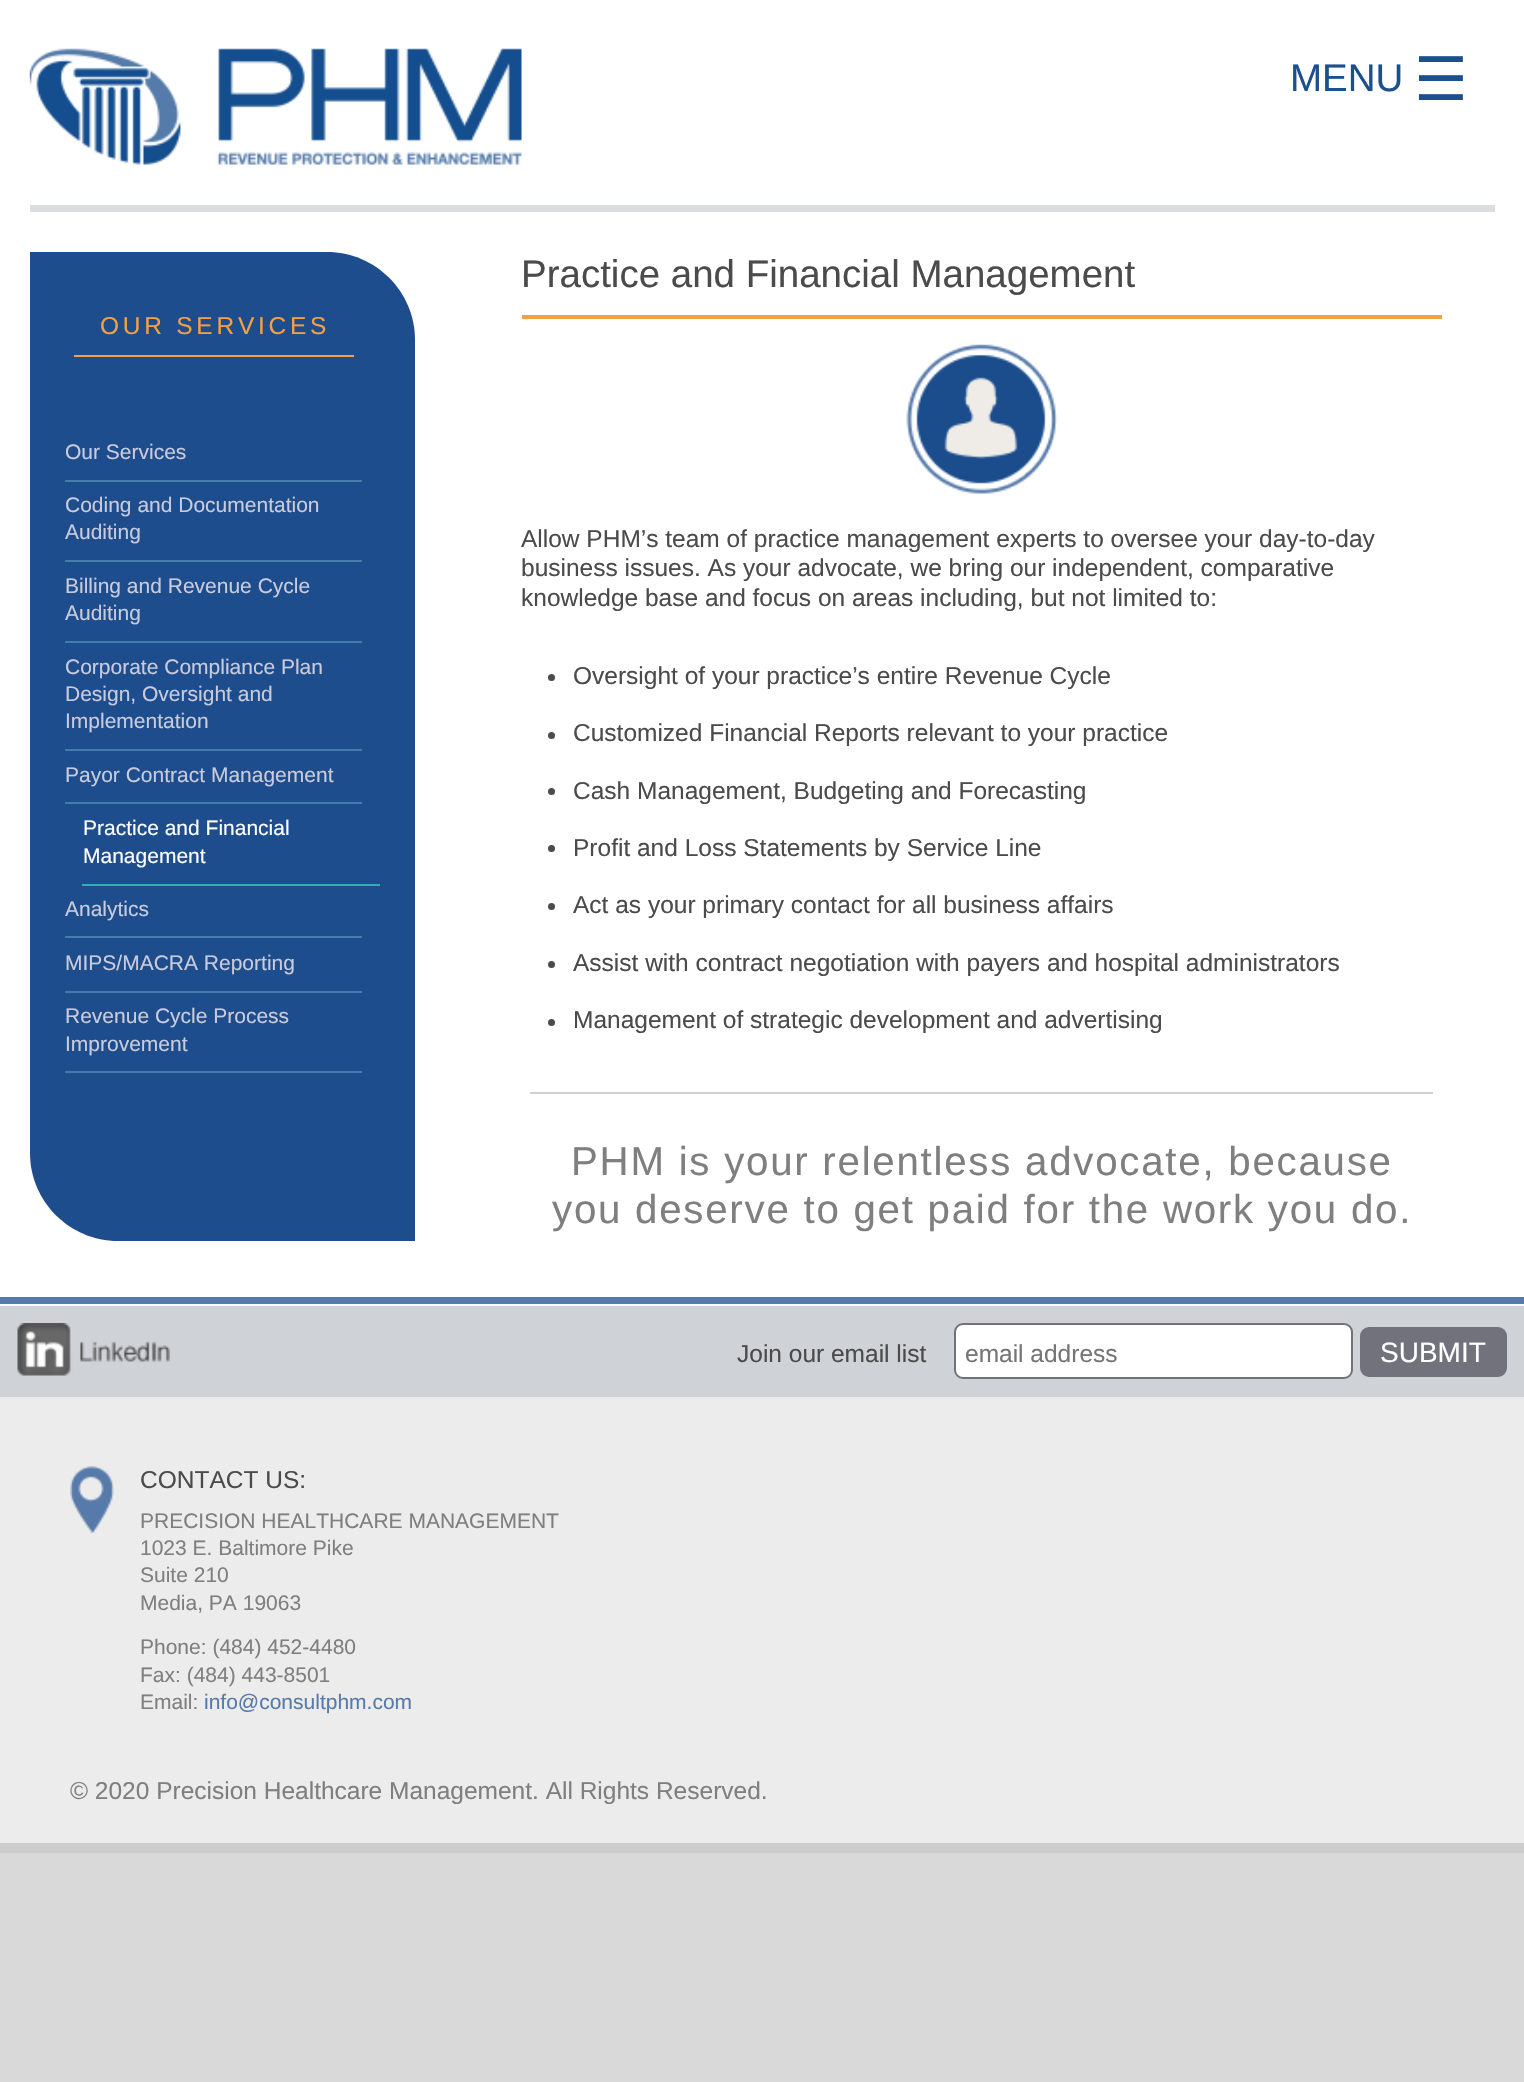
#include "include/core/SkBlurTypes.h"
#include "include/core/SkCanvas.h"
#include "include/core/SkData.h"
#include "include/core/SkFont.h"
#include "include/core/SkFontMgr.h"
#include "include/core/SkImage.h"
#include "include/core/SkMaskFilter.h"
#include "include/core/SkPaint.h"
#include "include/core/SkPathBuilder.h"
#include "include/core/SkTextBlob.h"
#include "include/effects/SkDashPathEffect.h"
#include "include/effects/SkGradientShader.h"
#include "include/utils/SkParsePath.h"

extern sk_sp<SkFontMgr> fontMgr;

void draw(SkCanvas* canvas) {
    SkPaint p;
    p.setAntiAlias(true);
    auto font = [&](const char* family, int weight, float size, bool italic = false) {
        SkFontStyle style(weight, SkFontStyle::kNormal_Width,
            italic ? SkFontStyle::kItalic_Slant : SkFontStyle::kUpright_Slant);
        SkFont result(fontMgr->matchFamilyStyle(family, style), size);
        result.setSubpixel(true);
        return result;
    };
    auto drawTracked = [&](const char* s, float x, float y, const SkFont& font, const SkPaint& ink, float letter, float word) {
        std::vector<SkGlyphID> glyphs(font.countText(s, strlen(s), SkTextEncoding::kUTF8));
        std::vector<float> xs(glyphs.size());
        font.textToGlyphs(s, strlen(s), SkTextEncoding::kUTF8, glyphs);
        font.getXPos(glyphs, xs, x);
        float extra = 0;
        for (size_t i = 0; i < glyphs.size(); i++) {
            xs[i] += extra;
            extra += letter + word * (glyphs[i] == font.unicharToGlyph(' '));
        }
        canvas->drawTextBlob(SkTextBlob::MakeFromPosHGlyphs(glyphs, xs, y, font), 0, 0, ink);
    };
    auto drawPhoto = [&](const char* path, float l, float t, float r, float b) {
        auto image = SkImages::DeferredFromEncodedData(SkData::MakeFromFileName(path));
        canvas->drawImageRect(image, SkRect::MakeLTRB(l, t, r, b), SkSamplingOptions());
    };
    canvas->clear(0xFFD9D9D9);
    {
        const struct { float l, t, r, b; SkColor color; } items[] = {
            {0, 1843, 1524, 1853, 0xFFCDCDCD},
            {0, 0, 1524, 1297, 0xFFFFFFFF},
            {30, 205, 1495, 212, 0xFFDCDDDE},
        };
        for (auto [l, t, r, b, color] : items) {
            p.setColor(color);
            canvas->drawRect(SkRect::MakeLTRB(l, t, r, b), p);
        }
    }
    drawPhoto("media/1.png", 29, 48, 522, 165);
    auto font1 = font("Liberation Sans", 400, 38.5f);
    p.setColor(0xFF1B4F8D);
    canvas->drawString("MENU", 1290, 91, font1, p);
    auto font2 = font("DejaVu Sans", 400, 60);
    canvas->drawString("☰", 1414, 100, font2, p);
    p.setColor(0xFF1D4D8C);
    canvas->drawPath(SkPathBuilder().moveTo(30, 252).lineTo(327, 252).cubicTo(375.5f, 252, 415, 291.5f, 415, 340).lineTo(415, 1241).lineTo(118, 1241).cubicTo(69.5f, 1241, 30, 1201.5f, 30, 1153).close().detach(), p);
    p.setColor(0xFFF7A042);
    canvas->drawRect(SkRect::MakeLTRB(74, 355, 354, 357), p);
    auto font3 = font("Liberation Sans", 400, 24.5f);
    drawTracked("OUR SERVICES", 100, 334, font3, p, 3.75f, 0);
    p.setColor(0xFF417CAA);
    canvas->drawRect(SkRect::MakeLTRB(65, 480, 362, 482), p);
    auto font4 = font("Liberation Sans", 400, 21);
    p.setColor(0xFFC9CBDC);
    canvas->drawString("Our Services", 65, 459, font4, p);
    p.setColor(0xFF417CAA);
    canvas->drawRect(SkRect::MakeLTRB(65, 560, 362, 562), p);
    p.setColor(0xFFC9CBDC);
    canvas->drawString("Coding and Documentation", 65, 512, font4, p);
    canvas->drawString("Auditing", 65, 539, font4, p);
    p.setColor(0xFF417CAA);
    canvas->drawRect(SkRect::MakeLTRB(65, 641, 362, 643), p);
    p.setColor(0xFFC9CBDC);
    canvas->drawString("Billing and Revenue Cycle", 65, 593, font4, p);
    canvas->drawString("Auditing", 65, 620, font4, p);
    p.setColor(0xFF417CAA);
    canvas->drawRect(SkRect::MakeLTRB(65, 749, 362, 751), p);
    p.setColor(0xFFC9CBDC);
    {
        const struct { const char* s; float x, y; } items[] = {
            {"Corporate Compliance Plan", 65, 674},
            {"Design, Oversight and", 65, 701},
            {"Implementation", 65, 728},
        };
        for (auto [s, x, y] : items) {
            canvas->drawString(s, x, y, font4, p);
        }
    }
    p.setColor(0xFF417CAA);
    canvas->drawRect(SkRect::MakeLTRB(65, 802, 362, 804), p);
    p.setColor(0xFFC9CBDC);
    canvas->drawString("Payor Contract Management", 65, 782, font4, p);
    p.setColor(0xFF2EAFB5);
    canvas->drawRect(SkRect::MakeLTRB(82, 884, 380, 886), p);
    p.setColor(0xFFFFFFFF);
    canvas->drawString("Practice and Financial", 83, 835, font4, p);
    canvas->drawString("Management", 83, 863, font4, p);
    p.setColor(0xFF417CAA);
    canvas->drawRect(SkRect::MakeLTRB(65, 936, 362, 938), p);
    p.setColor(0xFFC9CBDC);
    canvas->drawString("Analytics", 65, 916, font4, p);
    p.setColor(0xFF417CAA);
    canvas->drawRect(SkRect::MakeLTRB(65, 991, 362, 993), p);
    p.setColor(0xFFC9CBDC);
    canvas->drawString("MIPS/MACRA Reporting", 65, 970, font4, p);
    p.setColor(0xFF417CAA);
    canvas->drawRect(SkRect::MakeLTRB(65, 1071, 362, 1073), p);
    p.setColor(0xFFC9CBDC);
    canvas->drawString("Revenue Cycle Process", 65, 1023, font4, p);
    canvas->drawString("Improvement", 65, 1051, font4, p);
    p.setColor(0xFF4B4B4B);
    canvas->drawString("Practice and Financial Management", 521, 287, font1, p);
    p.setColor(0xFFF7A042);
    canvas->drawRect(SkRect::MakeLTRB(522, 315, 1442, 319), p);
    drawPhoto("media/2.png", 906, 344, 1057, 494);
    p.setColor(0xFF4B4B4B);
    {
        const struct { const char* s; float x, y; } items[] = {
            {"Allow PHM’s team of practice management experts to oversee your day-to-day", 521, 547},
            {"business issues. As your advocate, we bring our independent, comparative", 521, 576},
            {"knowledge base and focus on areas including, but not limited to:", 521, 606},
        };
        for (auto [s, x, y] : items) {
            canvas->drawString(s, x, y, font3, p);
        }
    }
    canvas->drawCircle(551.5f, 677.5f, 3.5f, p);
    canvas->drawString("Oversight of your practice’s entire Revenue Cycle", 573, 684, font3, p);
    canvas->drawCircle(551.5f, 735.5f, 3.5f, p);
    canvas->drawString("Customized Financial Reports relevant to your practice", 573, 741, font3, p);
    canvas->drawCircle(551.5f, 791.5f, 3.5f, p);
    canvas->drawString("Cash Management, Budgeting and Forecasting", 573, 799, font3, p);
    canvas->drawCircle(551.5f, 848.5f, 3.5f, p);
    canvas->drawString("Profit and Loss Statements by Service Line", 573, 856, font3, p);
    canvas->drawCircle(551.5f, 906.5f, 3.5f, p);
    canvas->drawString("Act as your primary contact for all business affairs", 573, 913, font3, p);
    canvas->drawCircle(551.5f, 964.5f, 3.5f, p);
    canvas->drawString("Assist with contract negotiation with payers and hospital administrators", 573, 971, font3, p);
    canvas->drawCircle(551.5f, 1022.5f, 3.5f, p);
    canvas->drawString("Management of strategic development and advertising", 573, 1028, font3, p);
    p.setColor(0xFFD0D0D0);
    canvas->drawRect(SkRect::MakeLTRB(530, 1092, 1433, 1094), p);
    auto font5 = font("Liberation Sans", 400, 40.25f);
    p.setColor(0xFF7F7F7F);
    drawTracked("PHM is your relentless advocate, because", 571, 1175, font5, p, 1.75f, 0);
    drawTracked("you deserve to get paid for the work you do.", 552, 1223, font5, p, 1.75f, 0);
    {
        const struct { float l, t, r, b; SkColor color; } items[] = {
            {0, 1397, 1524, 1843, 0xFFECECEC},
            {0, 1297, 1524, 1304, 0xFF567AA9},
            {0, 1306, 1524, 1397, 0xFFCFD2D6},
            {0, 1304, 1524, 1306, 0xFFFFFFFF},
        };
        for (auto [l, t, r, b, color] : items) {
            p.setColor(color);
            canvas->drawRect(SkRect::MakeLTRB(l, t, r, b), p);
        }
    }
    drawPhoto("media/3.png", 17, 1323, 170, 1376);
    p.setColor(0xFF4B4B4B);
    canvas->drawString("Join our email list", 737, 1362, font3, p);
    p.setColor(0xFFFFFFFF);
    canvas->drawRoundRect(SkRect::MakeLTRB(955, 1324, 1352, 1378), 8, 8, p);
    p.setStyle(SkPaint::kStroke_Style);
    p.setStrokeWidth(2);
    p.setColor(0xFF71727C);
    canvas->drawRoundRect(SkRect::MakeLTRB(955, 1324, 1352, 1378), 8, 8, p);
    p.setStyle(SkPaint::kFill_Style);
    p.setColor(0xFF757575);
    canvas->drawString("email address", 965, 1362, font3, p);
    p.setColor(0xFF71727C);
    canvas->drawRoundRect(SkRect::MakeLTRB(1360, 1327, 1507, 1377), 9, 9, p);
    auto font6 = font("Liberation Sans", 400, 28);
    p.setColor(0xFFFFFFFF);
    canvas->drawString("SUBMIT", 1380, 1362, font6, p);
    drawPhoto("media/4.png", 70, 1466, 114, 1533);
    p.setColor(0xFF4B4B4B);
    canvas->drawString("CONTACT US:", 140, 1488, font3, p);
    p.setColor(0xFF7F7F7F);
    {
        const struct { const char* s; float x, y; } items[] = {
            {"PRECISION HEALTHCARE MANAGEMENT", 140, 1528},
            {"1023 E. Baltimore Pike", 140, 1555},
            {"Suite 210", 140, 1582},
            {"Media, PA 19063", 140, 1610},
            {"Phone: (484) 452-4480", 140, 1654},
            {"Fax: (484) 443-8501", 140, 1682},
            {"Email:", 140, 1709},
        };
        for (auto [s, x, y] : items) {
            canvas->drawString(s, x, y, font4, p);
        }
    }
    p.setColor(0xFF567AA9);
    canvas->drawString("info@consultphm.com", 204, 1709, font4, p);
    p.setColor(0xFF7F7F7F);
    canvas->drawString("© 2020 Precision Healthcare Management. All Rights Reserved.", 70, 1799, font3, p);
}
